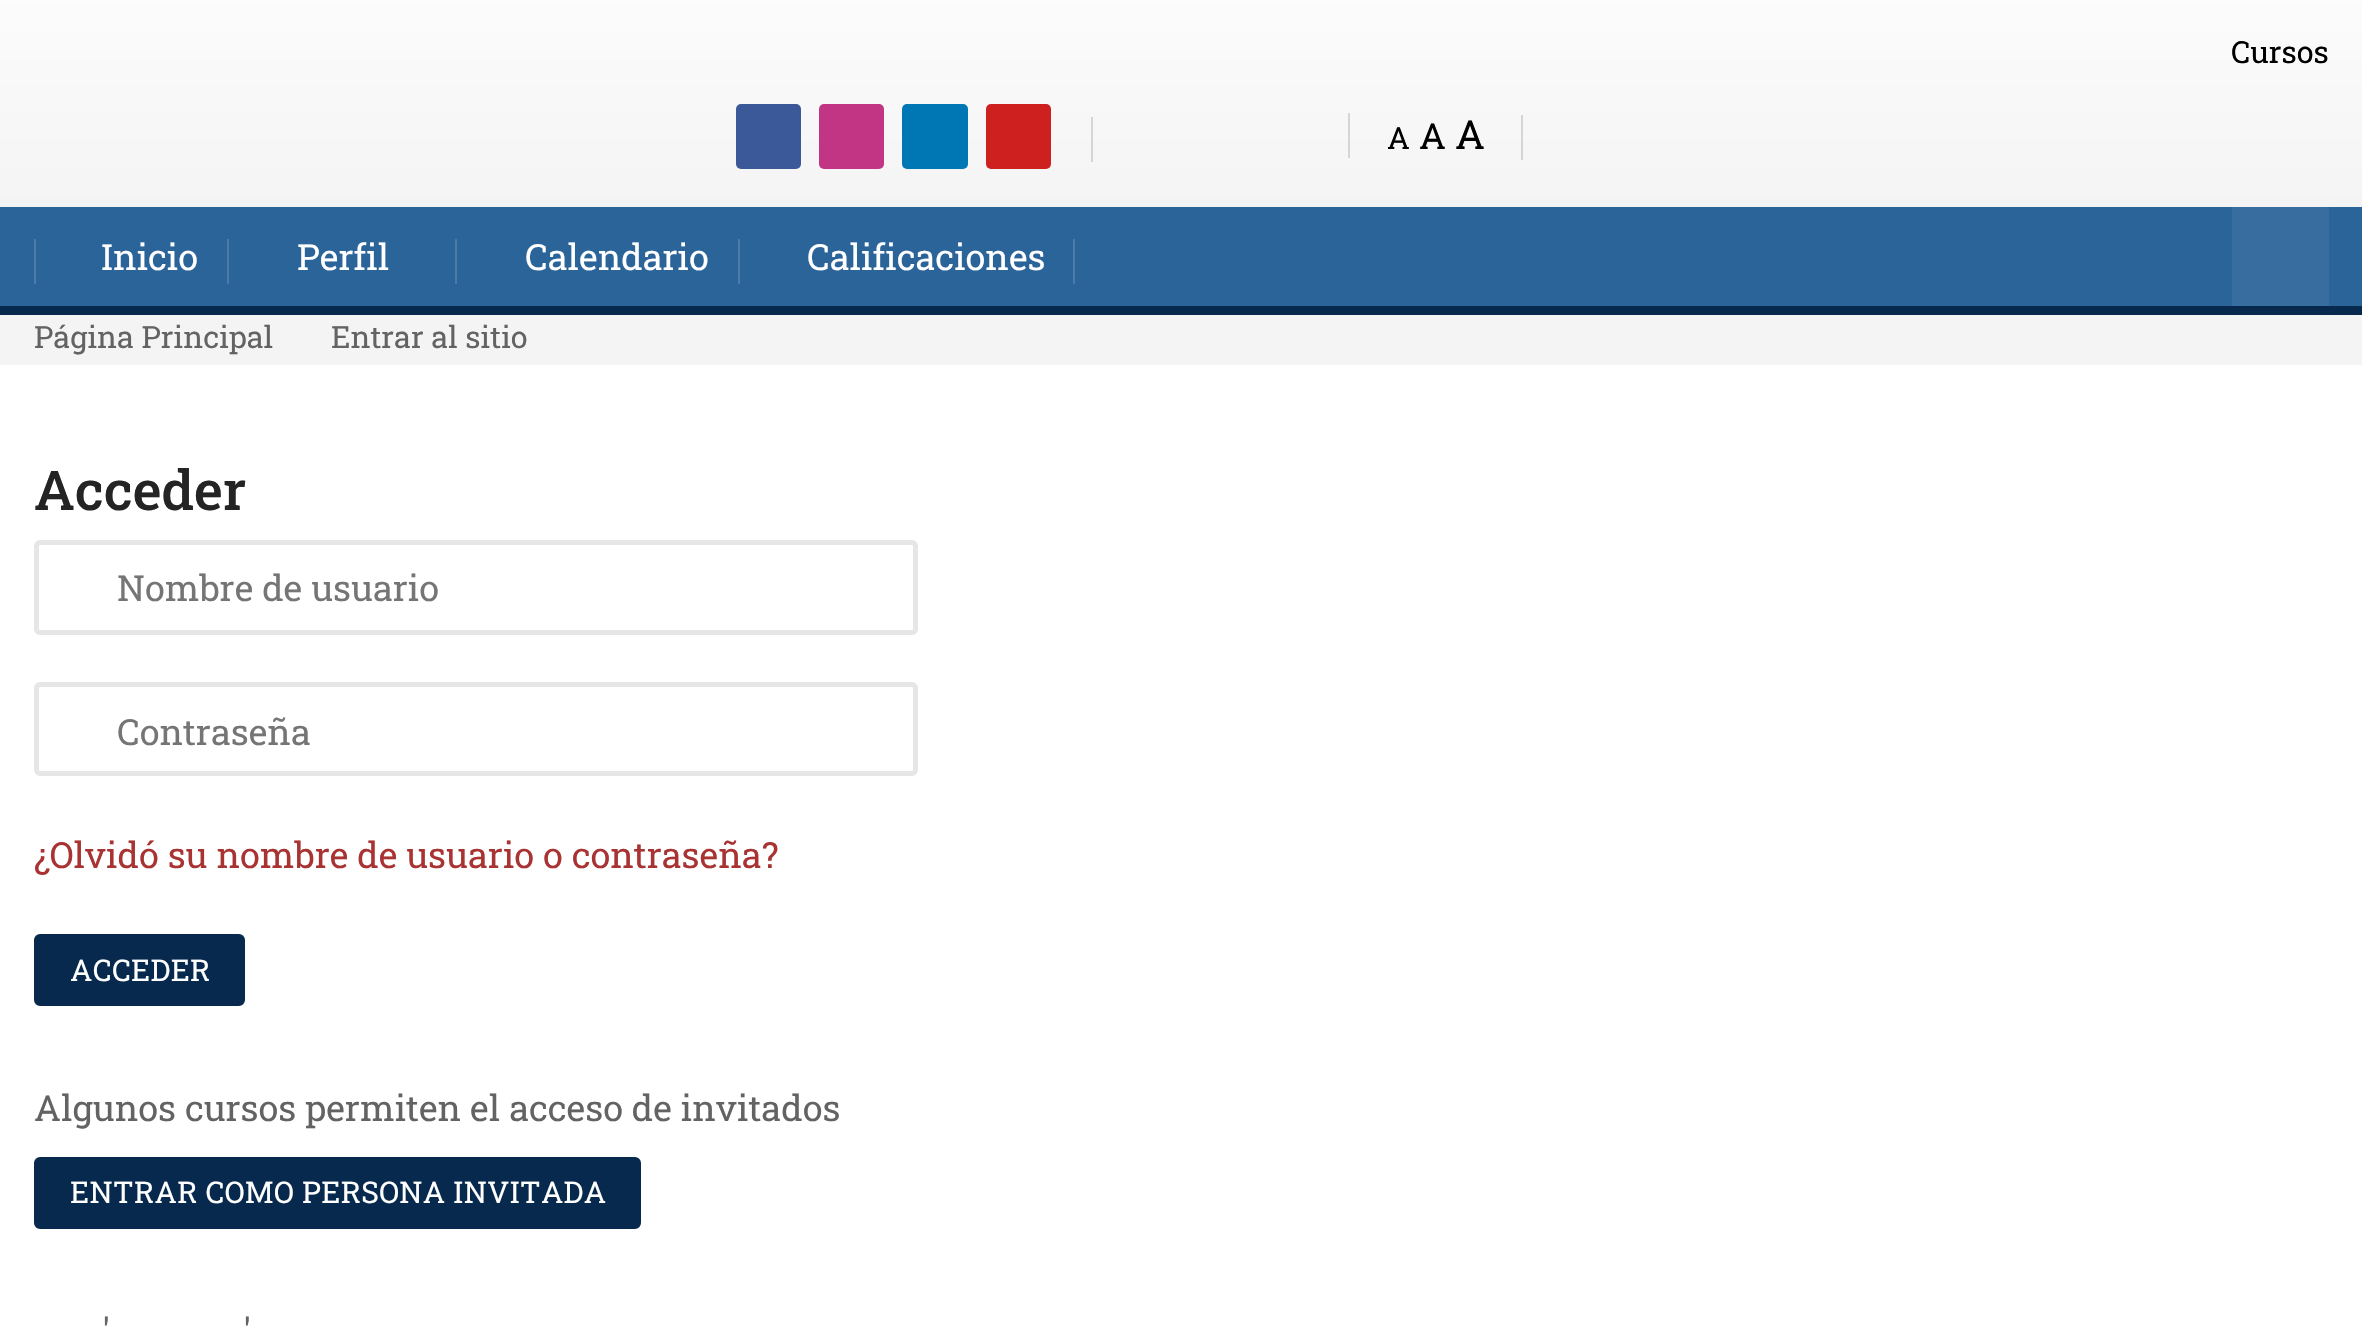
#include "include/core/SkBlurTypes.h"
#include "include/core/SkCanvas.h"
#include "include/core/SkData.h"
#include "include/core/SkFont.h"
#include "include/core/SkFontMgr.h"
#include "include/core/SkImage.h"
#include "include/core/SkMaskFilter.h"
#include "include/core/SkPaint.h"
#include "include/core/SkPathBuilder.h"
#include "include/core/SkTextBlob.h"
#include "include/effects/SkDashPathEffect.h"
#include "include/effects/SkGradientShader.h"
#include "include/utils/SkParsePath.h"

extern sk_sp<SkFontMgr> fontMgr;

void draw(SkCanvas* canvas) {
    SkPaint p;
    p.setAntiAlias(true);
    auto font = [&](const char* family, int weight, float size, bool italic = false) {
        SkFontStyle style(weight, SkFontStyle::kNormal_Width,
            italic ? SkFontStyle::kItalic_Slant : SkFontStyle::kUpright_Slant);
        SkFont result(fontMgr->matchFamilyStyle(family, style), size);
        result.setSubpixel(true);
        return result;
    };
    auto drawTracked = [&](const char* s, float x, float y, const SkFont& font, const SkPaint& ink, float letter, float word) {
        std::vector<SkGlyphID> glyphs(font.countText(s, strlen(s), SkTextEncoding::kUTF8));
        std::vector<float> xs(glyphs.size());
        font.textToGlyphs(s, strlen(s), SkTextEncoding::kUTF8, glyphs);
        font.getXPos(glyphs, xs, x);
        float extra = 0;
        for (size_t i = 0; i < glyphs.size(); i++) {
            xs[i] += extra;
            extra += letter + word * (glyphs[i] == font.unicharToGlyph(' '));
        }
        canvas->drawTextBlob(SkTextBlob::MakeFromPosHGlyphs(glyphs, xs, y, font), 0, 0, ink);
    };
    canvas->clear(0xFFFFFFFF);
    {
        const SkColor colors[] = {0xFFFFFFFF, 0xFFF4F4F4};
        const float stops[] = {0, 1};
        const SkPoint ends[] = {{1181, -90}, {1181, 207}};
        p.setShader(SkGradientShader::MakeLinear(ends, colors, stops, 2, SkTileMode::kClamp));
        p.setAlpha(255);
    }
    canvas->drawRect(SkRect::MakeLTRB(0, 0, 2362, 207), p);
    auto font1 = font("Roboto Slab", 400, 30.5f);
    p.setShader(nullptr);
    p.setColor(0xFF000000);
    canvas->drawString("Cursos", 2231, 63, font1, p);
    p.setColor(0xFF3B5998);
    canvas->drawRoundRect(SkRect::MakeLTRB(736, 104, 801, 169), 5, 5, p);
    p.setColor(0xFFC13584);
    canvas->drawRoundRect(SkRect::MakeLTRB(819, 104, 884, 169), 5, 5, p);
    p.setColor(0xFF0077B5);
    canvas->drawRoundRect(SkRect::MakeLTRB(902, 104, 968, 169), 5, 5, p);
    p.setColor(0xFFCD201F);
    canvas->drawRoundRect(SkRect::MakeLTRB(986, 104, 1051, 169), 5, 5, p);
    p.setColor(0xFFD5D5D5);
    canvas->drawRect(SkRect::MakeLTRB(1091, 117, 1093, 162), p);
    canvas->drawRect(SkRect::MakeLTRB(1348, 113, 1350, 158), p);
    p.setColor(0xFF000000);
    canvas->drawString("A", 1387, 149, font1, p);
    auto font2 = font("Roboto Slab", 400, 36);
    canvas->drawString("A", 1419, 149, font2, p);
    auto font3 = font("Roboto Slab", 400, 40);
    canvas->drawString("A", 1455, 149, font3, p);
    {
        const struct { float l, t, r, b; SkColor color; } items[] = {
            {1521, 115, 1523, 160, 0xFFD5D5D5},
            {0, 207, 2362, 306, 0xFF2B6499},
            {34, 239, 36, 284, 0xFF4B7BA8},
        };
        for (auto [l, t, r, b, color] : items) {
            p.setColor(color);
            canvas->drawRect(SkRect::MakeLTRB(l, t, r, b), p);
        }
    }
    p.setColor(0xFFFFFFFF);
    canvas->drawString("Inicio", 101, 270, font2, p);
    p.setColor(0xFF4B7BA8);
    canvas->drawRect(SkRect::MakeLTRB(227, 239, 229, 284), p);
    p.setColor(0xFFFFFFFF);
    canvas->drawString("Perfil", 297, 270, font2, p);
    p.setColor(0xFF4B7BA8);
    canvas->drawRect(SkRect::MakeLTRB(455, 239, 457, 284), p);
    p.setColor(0xFFFFFFFF);
    canvas->drawString("Calendario", 525, 270, font2, p);
    p.setColor(0xFF4B7BA8);
    canvas->drawRect(SkRect::MakeLTRB(738, 239, 740, 284), p);
    p.setColor(0xFFFFFFFF);
    canvas->drawString("Calificaciones", 807, 270, font2, p);
    {
        const struct { float l, t, r, b; SkColor color; } items[] = {
            {1073, 239, 1075, 284, 0xFF4B7BA8},
            {2232, 207, 2329, 306, 0xFF386D9F},
            {0, 306, 2362, 315, 0xFF07294D},
            {0, 315, 2362, 365, 0xFFF4F4F4},
        };
        for (auto [l, t, r, b, color] : items) {
            p.setColor(color);
            canvas->drawRect(SkRect::MakeLTRB(l, t, r, b), p);
        }
    }
    p.setColor(0xFF636363);
    canvas->drawString("Página Principal", 34, 348, font1, p);
    canvas->drawString("Entrar al sitio", 331, 348, font1, p);
    auto font4 = font("Roboto Slab", 500, 55);
    p.setColor(0xFF242424);
    canvas->drawString("Acceder", 34, 510, font4, p);
    p.setStyle(SkPaint::kStroke_Style);
    p.setStrokeWidth(5);
    p.setColor(0xFFE6E6E6);
    canvas->drawRoundRect(SkRect::MakeLTRB(36.5f, 542.5f, 915.5f, 632.5f), 3.5f, 3.5f, p);
    p.setStyle(SkPaint::kFill_Style);
    p.setColor(0xFF757575);
    canvas->drawString("Nombre de usuario", 117, 601, font2, p);
    p.setStyle(SkPaint::kStroke_Style);
    p.setColor(0xFFE6E6E6);
    canvas->drawRoundRect(SkRect::MakeLTRB(36.5f, 684.5f, 915.5f, 773.5f), 3.5f, 3.5f, p);
    p.setStyle(SkPaint::kFill_Style);
    p.setColor(0xFF757575);
    canvas->drawString("Contraseña", 117, 745, font2, p);
    p.setColor(0xFFA83332);
    canvas->drawString("¿Olvidó su nombre de usuario o contraseña?", 34, 868, font2, p);
    p.setColor(0xFF07294D);
    canvas->drawRoundRect(SkRect::MakeLTRB(35, 935, 244, 1005), 5, 5, p);
    p.setStyle(SkPaint::kStroke_Style);
    p.setStrokeWidth(2);
    canvas->drawRoundRect(SkRect::MakeLTRB(35, 935, 244, 1005), 5, 5, p);
    auto font5 = font("Roboto Slab", 400, 29.9f);
    p.setStyle(SkPaint::kFill_Style);
    p.setColor(0xFFFFFFFF);
    drawTracked("ACCEDER", 70, 981, font5, p, 0.35f, 0);
    p.setColor(0xFF636363);
    canvas->drawString("Algunos cursos permiten el acceso de invitados", 34, 1121, font2, p);
    p.setColor(0xFF07294D);
    canvas->drawRoundRect(SkRect::MakeLTRB(35, 1158, 640, 1228), 5, 5, p);
    p.setStyle(SkPaint::kStroke_Style);
    canvas->drawRoundRect(SkRect::MakeLTRB(35, 1158, 640, 1228), 5, 5, p);
    p.setStyle(SkPaint::kFill_Style);
    p.setColor(0xFFFFFFFF);
    drawTracked("ENTRAR COMO PERSONA INVITADA", 70, 1203, font5, p, 0.35f, 0);
    p.setColor(0xFF636363);
    canvas->drawString("'", 102, 1344, font2, p);
    canvas->drawString("'", 243, 1344, font2, p);
}
